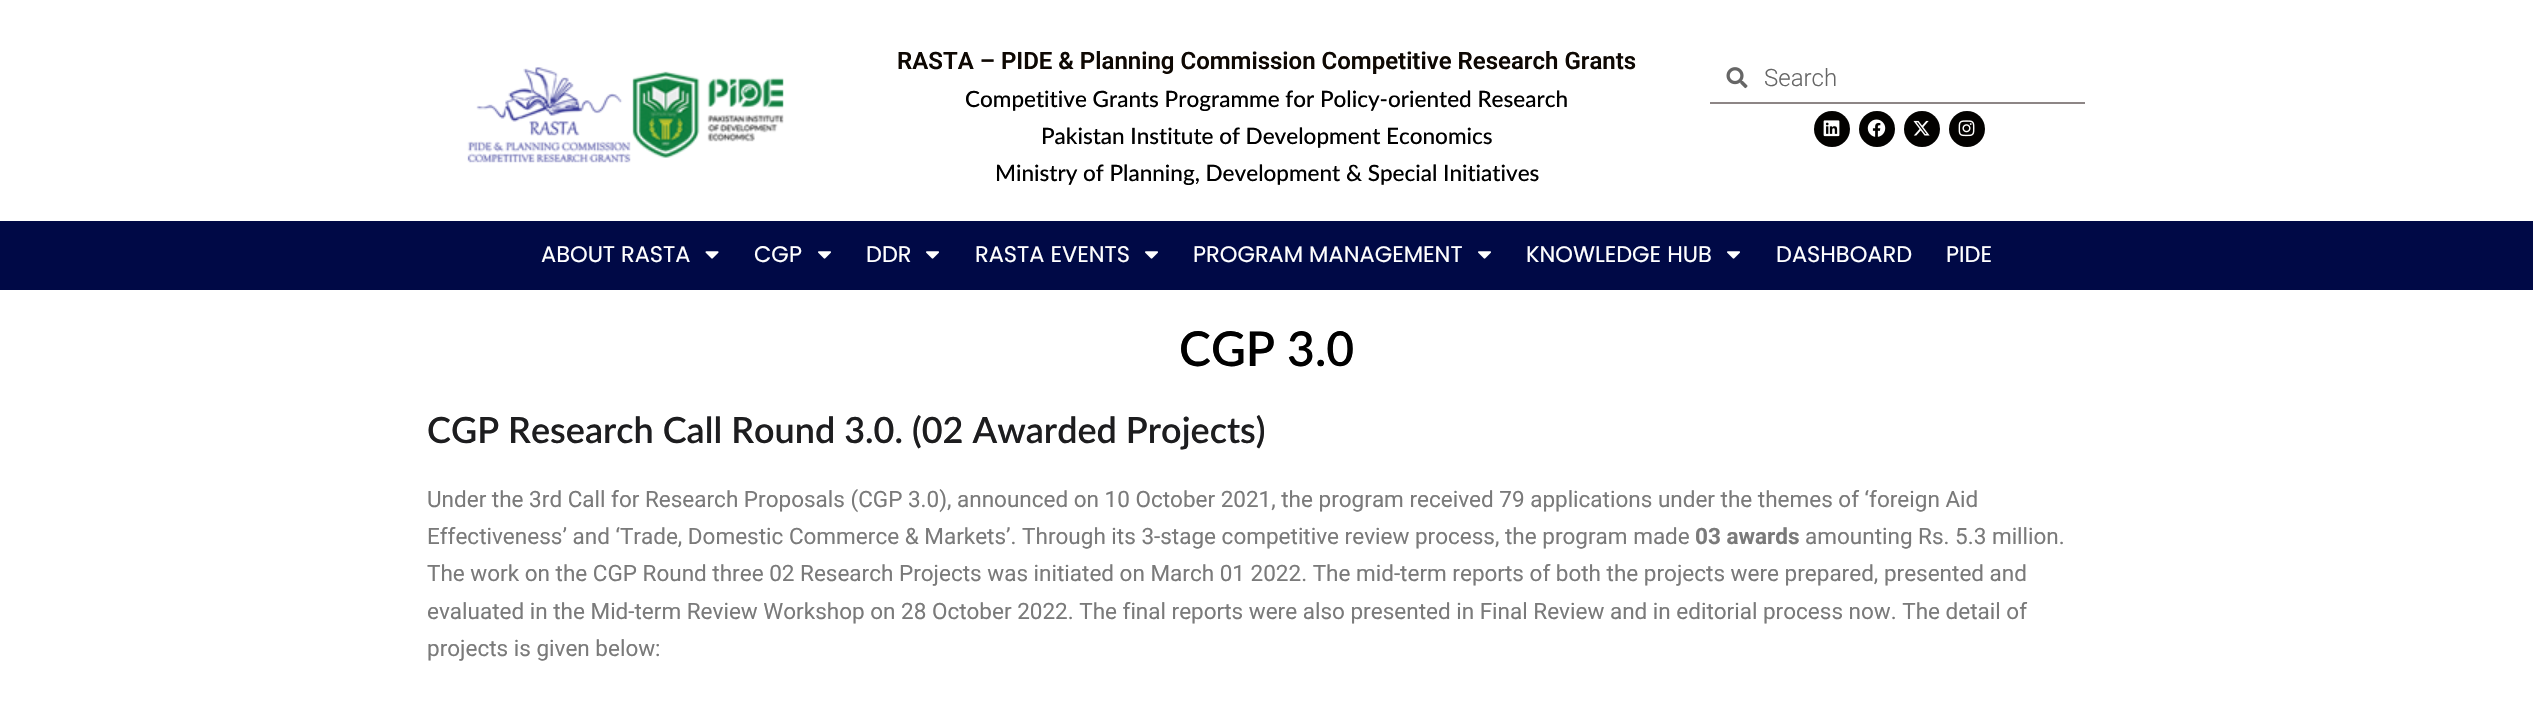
#include "include/core/SkBlurTypes.h"
#include "include/core/SkCanvas.h"
#include "include/core/SkData.h"
#include "include/core/SkFont.h"
#include "include/core/SkFontMgr.h"
#include "include/core/SkImage.h"
#include "include/core/SkMaskFilter.h"
#include "include/core/SkPaint.h"
#include "include/core/SkPathBuilder.h"
#include "include/core/SkTextBlob.h"
#include "include/effects/SkDashPathEffect.h"
#include "include/effects/SkGradientShader.h"
#include "include/utils/SkParsePath.h"

extern sk_sp<SkFontMgr> fontMgr;

void draw(SkCanvas* canvas) {
    SkPaint p;
    p.setAntiAlias(true);
    auto font = [&](const char* family, int weight, float size, bool italic = false) {
        SkFontStyle style(weight, SkFontStyle::kNormal_Width,
            italic ? SkFontStyle::kItalic_Slant : SkFontStyle::kUpright_Slant);
        SkFont result(fontMgr->matchFamilyStyle(family, style), size);
        result.setSubpixel(true);
        return result;
    };
    auto drawPhoto = [&](const char* path, float l, float t, float r, float b) {
        auto image = SkImages::DeferredFromEncodedData(SkData::MakeFromFileName(path));
        canvas->drawImageRect(image, SkRect::MakeLTRB(l, t, r, b), SkSamplingOptions());
    };
    canvas->clear(0xFFFFFFFF);
    drawPhoto("media/1.png", 467, 67, 784, 163);
    auto font1 = font("Roboto", 600, 24);
    p.setColor(0xFF0E0803);
    canvas->drawString("RASTA – PIDE & Planning Commission Competitive Research Grants", 897, 69, font1, p);
    auto font2 = font("Lato", 500, 22.5f);
    p.setColor(0xFF000000);
    {
        const struct { const char* s; float x, y; } items[] = {
            {"Competitive Grants Programme for Policy-oriented Research", 965, 107},
            {"Pakistan Institute of Development Economics", 1041, 144},
            {"Ministry of Planning, Development & Special Initiatives", 995, 181},
        };
        for (auto [s, x, y] : items) {
            canvas->drawString(s, x, y, font2, p);
        }
    }
    p.setColor(0xFF8D8686);
    canvas->drawRect(SkRect::MakeLTRB(1710, 102, 2085, 104), p);
    drawPhoto("media/2.png", 1726, 67, 1748, 89);
    auto font3 = font("Roboto", 300, 24);
    p.setColor(0xFF666666);
    canvas->drawString("Search", 1764, 86, font3, p);
    p.setColor(0xFF030200);
    canvas->drawCircle(1832, 129, 18, p);
    drawPhoto("media/3.png", 1823, 120, 1840, 137);
    canvas->drawCircle(1877, 129, 18, p);
    drawPhoto("media/4.png", 1867, 119, 1886, 137);
    canvas->drawCircle(1922, 129, 18, p);
    drawPhoto("media/5.png", 1913, 120, 1930, 136);
    canvas->drawCircle(1967, 129, 18, p);
    drawPhoto("media/6.png", 1958, 120, 1975, 137);
    p.setColor(0xFF000946);
    canvas->drawRect(SkRect::MakeLTRB(0, 221, 2533, 290), p);
    auto font4 = font("Poppins", 400, 22.5f);
    p.setColor(0xFFFFFFFF);
    canvas->drawString("ABOUT RASTA", 541, 262, font4, p);
    drawPhoto("media/7.png", 705, 251, 719, 259);
    canvas->drawString("CGP", 754, 262, font4, p);
    drawPhoto("media/8.png", 818, 251, 831, 259);
    canvas->drawString("DDR", 866, 262, font4, p);
    drawPhoto("media/8.png", 926, 251, 939, 259);
    canvas->drawString("RASTA EVENTS", 975, 262, font4, p);
    drawPhoto("media/8.png", 1145, 251, 1158, 259);
    canvas->drawString("PROGRAM MANAGEMENT", 1193, 262, font4, p);
    drawPhoto("media/8.png", 1478, 251, 1491, 259);
    canvas->drawString("KNOWLEDGE HUB", 1526, 262, font4, p);
    drawPhoto("media/8.png", 1727, 251, 1740, 259);
    canvas->drawString("DASHBOARD", 1776, 262, font4, p);
    canvas->drawString("PIDE", 1946, 262, font4, p);
    auto font5 = font("Lato", 600, 48);
    p.setColor(0xFF000000);
    canvas->drawString("CGP 3.0", 1179, 366, font5, p);
    auto font6 = font("Lato", 600, 36);
    p.setColor(0xFF1D1D1F);
    canvas->drawString("CGP Research Call Round 3.0. (02 Awarded Projects)", 427, 443, font6, p);
    auto font7 = font("Roboto", 400, 22.5f);
    p.setColor(0xFF7A7A7A);
    canvas->drawString("Under the 3rd Call for Research Proposals (CGP 3.0), announced on 10 October 2021, the program received 79 applications under the themes of ‘foreign Aid", 427, 507, font7, p);
    canvas->drawString("Effectiveness’ and ‘Trade, Domestic Commerce & Markets’. Through its 3-stage competitive review process, the program made", 427, 544, font7, p);
    auto font8 = font("Roboto", 700, 22.5f);
    canvas->drawString("03 awards", 1695, 544, font8, p);
    {
        const struct { const char* s; float x, y; } items[] = {
            {"amounting Rs. 5.3 million.", 1805, 544},
            {"The work on the CGP Round three 02 Research Projects was initiated on March 01 2022. The mid-term reports of both the projects were prepared, presented and", 427, 581},
            {"evaluated in the Mid-term Review Workshop on 28 October 2022. The final reports were also presented in Final Review and in editorial process now. The detail of", 427, 619},
            {"projects is given below:", 427, 656},
        };
        for (auto [s, x, y] : items) {
            canvas->drawString(s, x, y, font7, p);
        }
    }
}
